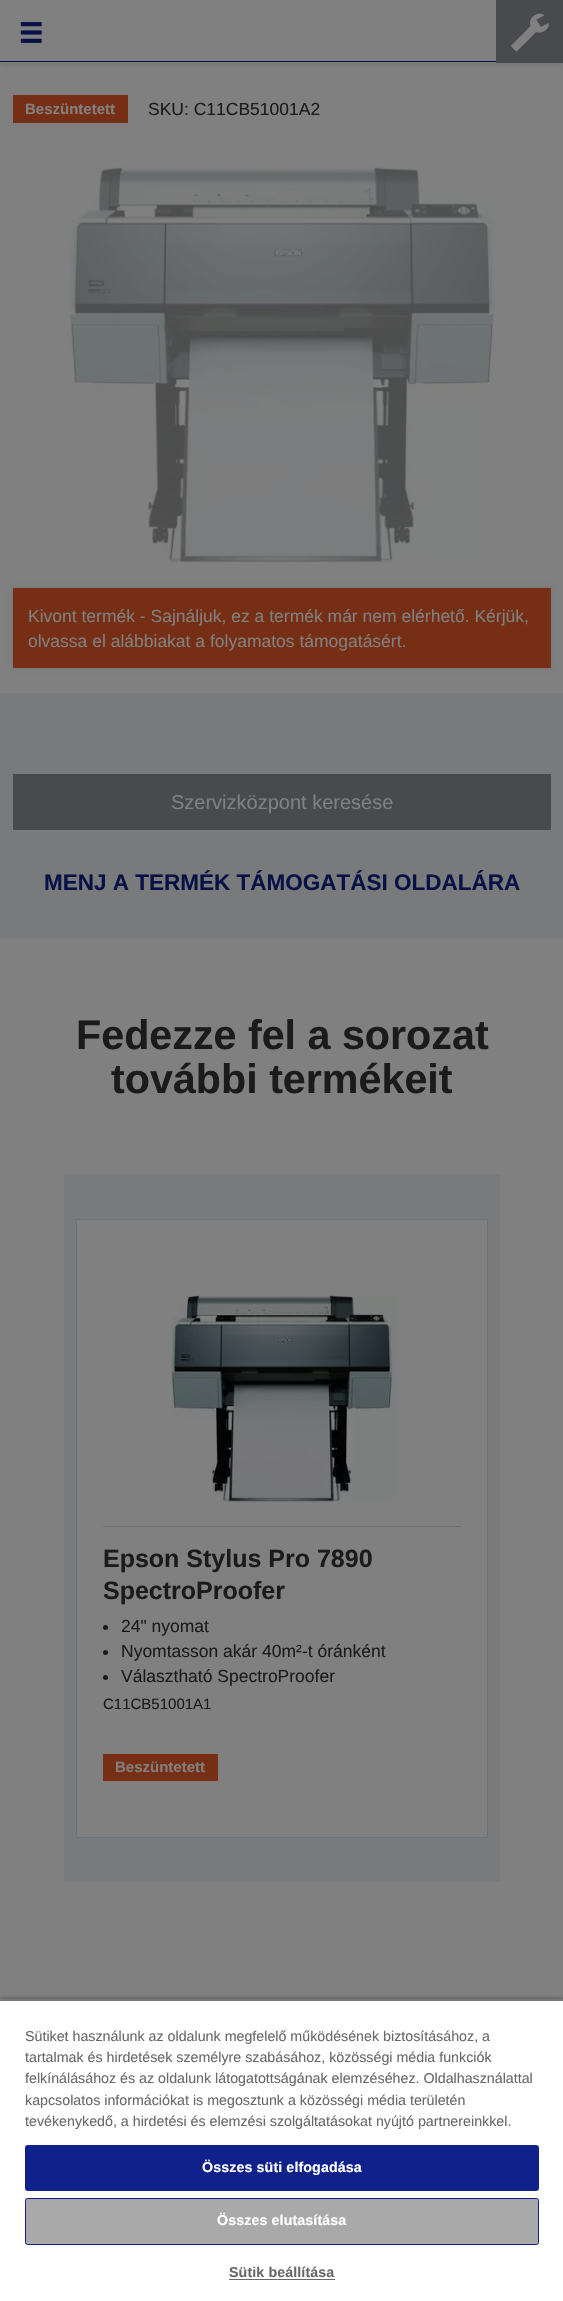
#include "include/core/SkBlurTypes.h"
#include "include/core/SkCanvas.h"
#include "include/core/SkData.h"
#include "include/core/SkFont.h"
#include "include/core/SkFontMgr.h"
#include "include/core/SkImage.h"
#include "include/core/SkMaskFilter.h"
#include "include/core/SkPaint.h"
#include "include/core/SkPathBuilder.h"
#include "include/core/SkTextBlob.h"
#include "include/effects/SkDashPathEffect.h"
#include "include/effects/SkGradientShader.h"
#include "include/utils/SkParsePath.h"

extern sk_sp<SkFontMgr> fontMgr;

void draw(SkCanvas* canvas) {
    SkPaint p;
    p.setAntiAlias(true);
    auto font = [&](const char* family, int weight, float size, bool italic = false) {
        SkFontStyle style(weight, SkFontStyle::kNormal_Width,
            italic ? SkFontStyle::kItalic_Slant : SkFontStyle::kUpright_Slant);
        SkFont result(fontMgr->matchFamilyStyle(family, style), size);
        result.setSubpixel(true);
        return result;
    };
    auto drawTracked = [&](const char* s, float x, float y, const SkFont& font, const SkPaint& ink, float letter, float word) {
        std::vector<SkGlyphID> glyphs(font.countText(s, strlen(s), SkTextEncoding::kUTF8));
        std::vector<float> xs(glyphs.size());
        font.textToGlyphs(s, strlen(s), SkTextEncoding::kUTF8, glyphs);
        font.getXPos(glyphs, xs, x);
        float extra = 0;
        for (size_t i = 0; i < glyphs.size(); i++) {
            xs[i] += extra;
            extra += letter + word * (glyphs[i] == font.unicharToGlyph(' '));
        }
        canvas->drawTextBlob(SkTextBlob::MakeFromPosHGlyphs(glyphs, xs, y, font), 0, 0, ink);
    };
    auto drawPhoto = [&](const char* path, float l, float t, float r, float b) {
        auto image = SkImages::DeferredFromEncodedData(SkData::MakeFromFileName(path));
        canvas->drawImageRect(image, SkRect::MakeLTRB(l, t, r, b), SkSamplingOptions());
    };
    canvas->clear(0xFF808080);
    p.setColor(0x1A081146);
    p.setMaskFilter(SkMaskFilter::MakeBlur(kNormal_SkBlurStyle, 3));
    canvas->drawRect(SkRect::MakeLTRB(0, 3, 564, 65), p);
    p.setMaskFilter(nullptr);
    p.setColor(0xFF808080);
    canvas->drawRect(SkRect::MakeLTRB(0, 1, 496, 63), p);
    p.setColor(0xFF081146);
    canvas->drawRect(SkRect::MakeLTRB(0, 61, 496, 62), p);
    drawPhoto("media/1.png", 20, 22, 42, 43);
    p.setColor(0xFF484A4E);
    canvas->drawRect(SkRect::MakeLTRB(496, 0, 563, 63), p);
    drawPhoto("media/2.png", 511, 13, 549, 52);
    p.setColor(0xFF762E15);
    canvas->drawRect(SkRect::MakeLTRB(13, 95, 128, 123), p);
    auto font1 = font("Liberation Sans", 700, 15);
    p.setColor(0xFF808080);
    canvas->drawString("Beszüntetett", 25, 114, font1, p);
    auto font2 = font("Liberation Sans", 400, 17.5f);
    p.setColor(0xFF1B1B1B);
    canvas->drawString("SKU: C11CB51001A2", 148, 115, font2, p);
    drawPhoto("media/3.png", 69, 167, 495, 563);
    p.setColor(0x1A000000);
    p.setMaskFilter(SkMaskFilter::MakeBlur(kNormal_SkBlurStyle, 2.5f));
    canvas->drawRect(SkRect::MakeLTRB(13, 588, 551, 668), p);
    p.setMaskFilter(nullptr);
    p.setColor(0xFF762E15);
    canvas->drawRect(SkRect::MakeLTRB(13, 588, 551, 668), p);
    p.setColor(0xFF808080);
    canvas->drawString("Kivont termék - Sajnáljuk, ez a termék már nem elérhető. Kérjük,", 28, 622, font2, p);
    canvas->drawString("olvassa el alábbiakat a folyamatos támogatásért.", 28, 647, font2, p);
    p.setColor(0xFF797A7B);
    canvas->drawRect(SkRect::MakeLTRB(0, 693, 563, 938), p);
    p.setColor(0xFF484A4E);
    canvas->drawRect(SkRect::MakeLTRB(13, 774, 551, 830), p);
    auto font3 = font("Liberation Sans", 400, 20);
    p.setColor(0xFF808080);
    canvas->drawString("Szervizközpont keresése", 171, 809, font3, p);
    auto font4 = font("Liberation Sans", 700, 22.5f);
    p.setColor(0xFF081146);
    canvas->drawString("MENJ A TERMÉK TÁMOGATÁSI OLDALÁRA", 44, 890, font4, p);
    auto font5 = font("Liberation Sans", 700, 41.25f);
    p.setColor(0xFF1B1B1B);
    canvas->drawString("Fedezze fel a sorozat", 76, 1049, font5, p);
    canvas->drawString("további termékeit", 111, 1093, font5, p);
    p.setColor(0xFF797A7B);
    canvas->drawRect(SkRect::MakeLTRB(64, 1175, 500, 1881), p);
    p.setColor(0xFF808080);
    canvas->drawRect(SkRect::MakeLTRB(76.5f, 1219.5f, 487.5f, 1837.5f), p);
    p.setStyle(SkPaint::kStroke_Style);
    p.setStrokeWidth(1);
    p.setColor(0xFF6D7276);
    canvas->drawRect(SkRect::MakeLTRB(76.5f, 1219.5f, 487.5f, 1837.5f), p);
    p.setStyle(SkPaint::kFill_Style);
    canvas->drawRect(SkRect::MakeLTRB(103, 1526, 461, 1527), p);
    drawPhoto("media/4.png", 171, 1295, 396, 1502);
    auto font6 = font("Liberation Sans", 700, 25);
    p.setColor(0xFF1B1B1B);
    canvas->drawString("Epson Stylus Pro 7890", 103, 1567, font6, p);
    canvas->drawString("SpectroProofer", 103, 1599, font6, p);
    canvas->drawCircle(105.5f, 1627.5f, 2.5f, p);
    canvas->drawString("24\" nyomat", 121, 1632, font2, p);
    canvas->drawCircle(105.5f, 1652.5f, 2.5f, p);
    canvas->drawString("Nyomtasson akár 40m²-t óránként", 121, 1657, font2, p);
    canvas->drawCircle(105.5f, 1677.5f, 2.5f, p);
    canvas->drawString("Választható SpectroProofer", 121, 1682, font2, p);
    auto font7 = font("Liberation Sans", 400, 15);
    canvas->drawString("C11CB51001A1", 103, 1709, font7, p);
    p.setColor(0xFF762E15);
    canvas->drawRect(SkRect::MakeLTRB(103, 1754, 218, 1781), p);
    p.setColor(0xFF808080);
    canvas->drawString("Beszüntetett", 115, 1772, font1, p);
    canvas->save();
    canvas->clipRect(SkRect::MakeLTRB(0, 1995, 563, 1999));
    p.setColor(0x59000000);
    p.setMaskFilter(SkMaskFilter::MakeBlur(kNormal_SkBlurStyle, 2.5f));
    canvas->drawRect(SkRect::MakeLTRB(0, 1999, 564, 2301), p);
    p.setMaskFilter(nullptr);
    canvas->restore();
    p.setColor(0x33000000);
    p.setMaskFilter(SkMaskFilter::MakeBlur(kNormal_SkBlurStyle, 2.5f));
    canvas->drawRect(SkRect::MakeLTRB(0, 2001, 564, 2301), p);
    p.setMaskFilter(nullptr);
    p.setColor(0xFFFFFFFF);
    canvas->drawRect(SkRect::MakeLTRB(0, 2001, 563, 2301), p);
    auto font8 = font("Liberation Sans", 400, 14.25f);
    p.setColor(0xFF696969);
    {
        const struct { const char* s; float x, y; } items[] = {
            {"Sütiket használunk az oldalunk megfelelő működésének biztosításához, a", 25, 2041},
            {"tartalmak és hirdetések személyre szabásához, közösségi média funkciók", 25, 2062},
            {"felkínálásához és az oldalunk látogatottságának elemzéséhez. Oldalhasználattal", 25, 2083},
            {"kapcsolatos információkat is megosztunk a közösségi média területén", 25, 2105},
            {"tevékenykedő, a hirdetési és elemzési szolgáltatásokat nyújtó partnereinkkel.", 25, 2126},
        };
        for (auto [s, x, y] : items) {
            canvas->drawString(s, x, y, font8, p);
        }
    }
    p.setColor(0xFF10218B);
    canvas->drawRoundRect(SkRect::MakeLTRB(25.5f, 2145.5f, 538.5f, 2190.5f), 2, 2, p);
    p.setStyle(SkPaint::kStroke_Style);
    canvas->drawRoundRect(SkRect::MakeLTRB(25.5f, 2145.5f, 538.5f, 2190.5f), 2, 2, p);
    auto font9 = font("Liberation Sans", 700, 14.25f);
    p.setStyle(SkPaint::kFill_Style);
    p.setColor(0xFFFFFFFF);
    drawTracked("Összes süti elfogadása", 202, 2172, font9, p, 0.1f, 0);
    p.setColor(0xFFA9A9A9);
    canvas->drawRoundRect(SkRect::MakeLTRB(25.5f, 2198.5f, 538.5f, 2244.5f), 2, 2, p);
    p.setStyle(SkPaint::kStroke_Style);
    p.setColor(0xFF10218B);
    canvas->drawRoundRect(SkRect::MakeLTRB(25.5f, 2198.5f, 538.5f, 2244.5f), 2, 2, p);
    p.setStyle(SkPaint::kFill_Style);
    p.setColor(0xFFFFFFFF);
    drawTracked("Összes elutasítása", 217, 2225, font9, p, 0.1f, 0);
    p.setColor(0xFF696969);
    drawTracked("Sütik beállítása", 229, 2277, font9, p, 0.1f, 0);
    canvas->drawRect(SkRect::MakeLTRB(229, 2279, 335, 2280), p);
}
